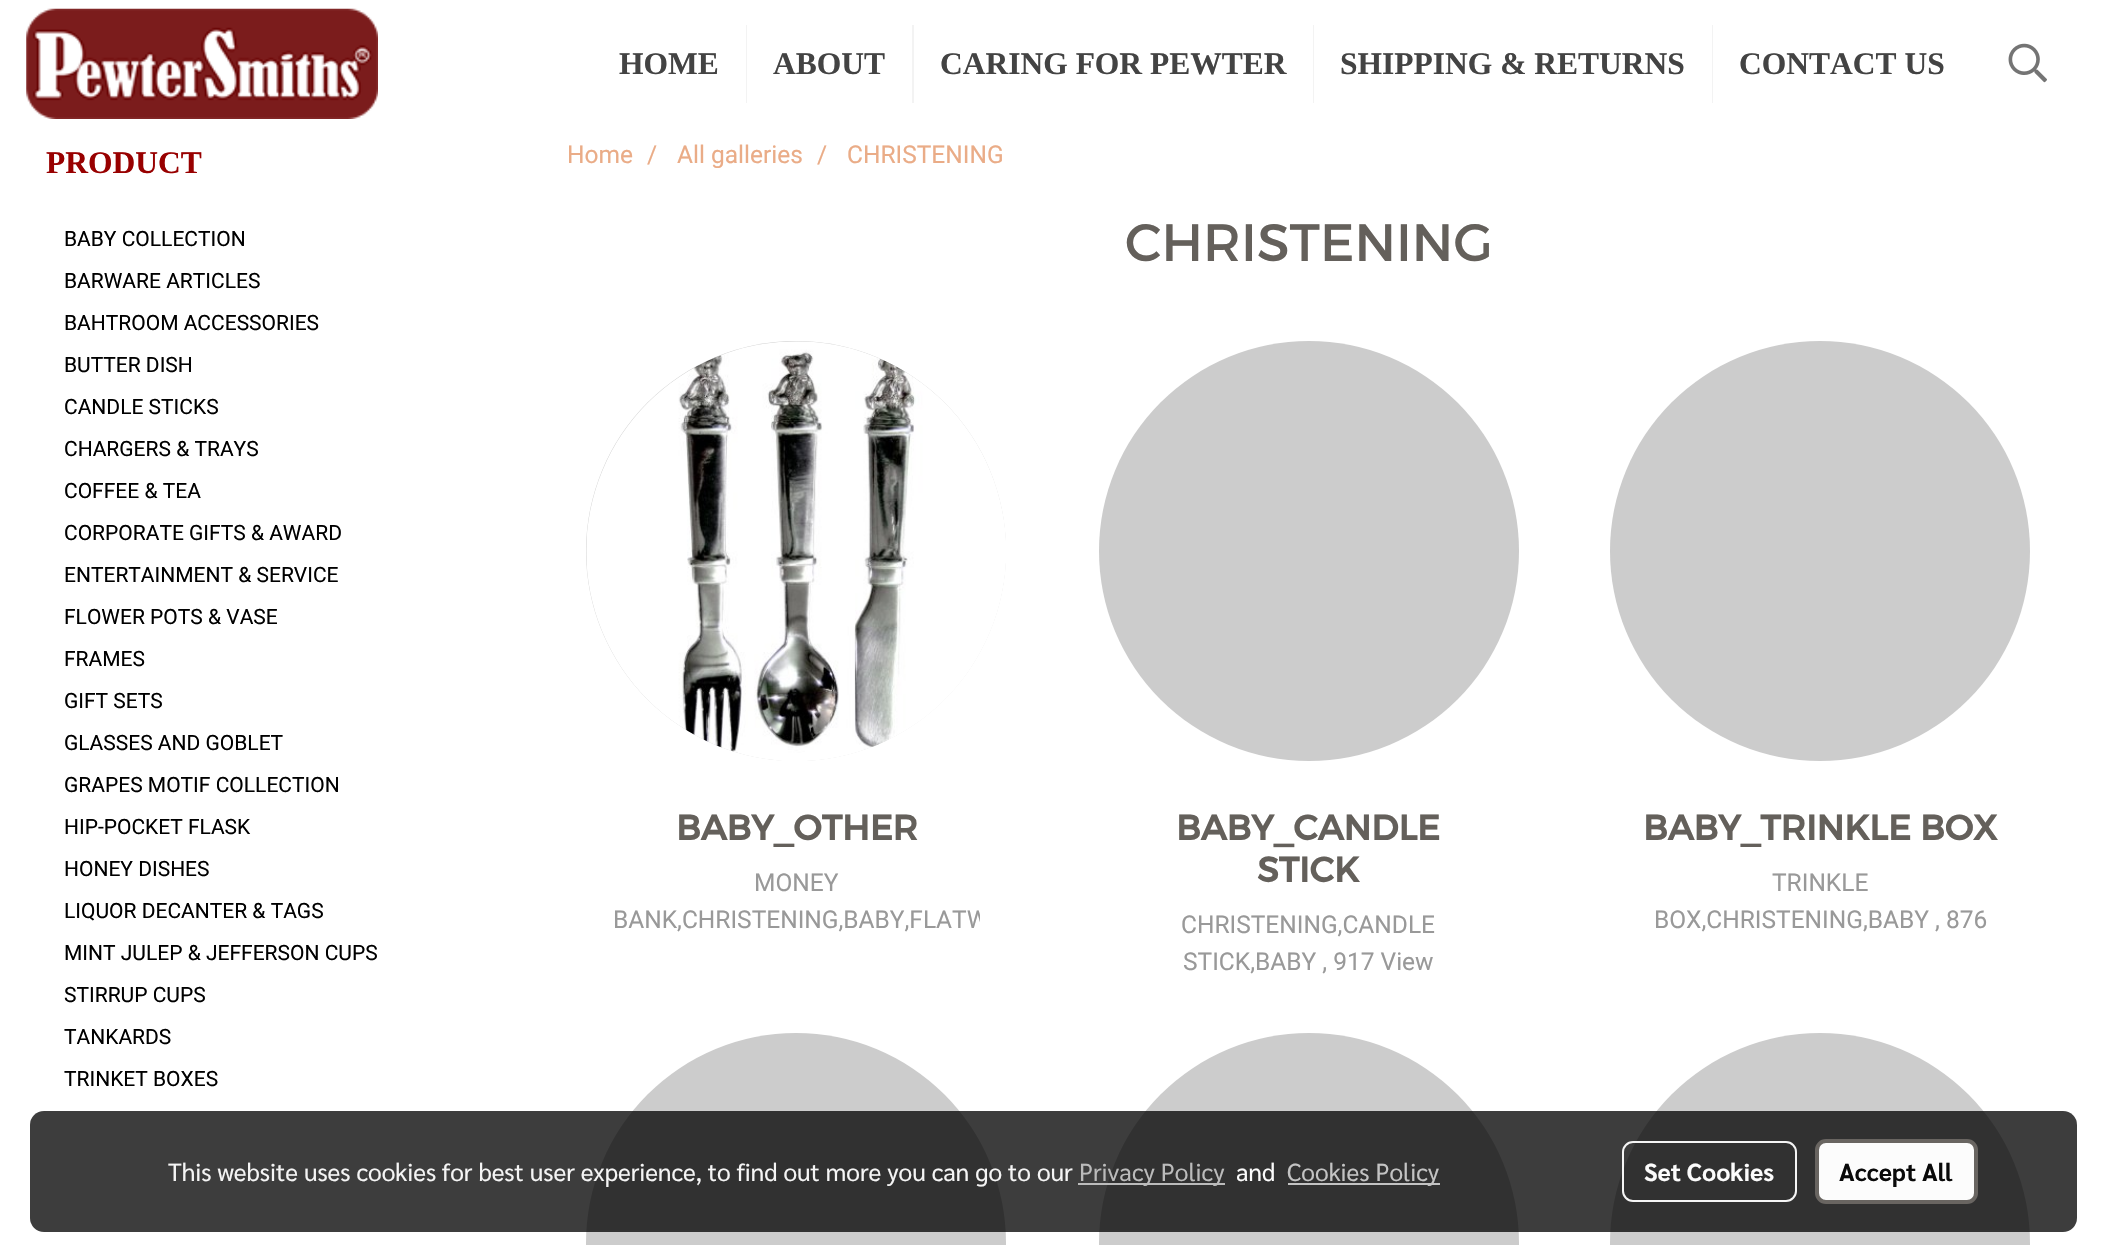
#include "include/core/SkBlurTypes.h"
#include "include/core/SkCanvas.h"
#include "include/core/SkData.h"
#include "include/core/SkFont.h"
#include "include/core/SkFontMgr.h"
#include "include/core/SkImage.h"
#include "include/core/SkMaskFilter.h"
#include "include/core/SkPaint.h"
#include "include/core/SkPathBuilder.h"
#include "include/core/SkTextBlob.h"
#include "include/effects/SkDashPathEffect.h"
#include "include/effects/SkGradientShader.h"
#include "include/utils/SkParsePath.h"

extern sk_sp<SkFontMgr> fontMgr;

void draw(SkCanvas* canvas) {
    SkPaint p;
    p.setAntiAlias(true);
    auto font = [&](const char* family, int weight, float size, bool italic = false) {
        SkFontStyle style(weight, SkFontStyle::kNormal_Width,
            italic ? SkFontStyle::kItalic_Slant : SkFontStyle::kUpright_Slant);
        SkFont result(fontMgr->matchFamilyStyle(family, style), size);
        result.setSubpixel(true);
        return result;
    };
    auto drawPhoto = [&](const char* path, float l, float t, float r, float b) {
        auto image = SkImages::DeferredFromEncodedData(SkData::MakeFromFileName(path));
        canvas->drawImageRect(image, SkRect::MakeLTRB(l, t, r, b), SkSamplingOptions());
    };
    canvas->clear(0xFFFFFFFF);
    drawPhoto("media/1.png", 26, 8, 378, 119);
    p.setColor(0xFFF3F3F3);
    canvas->drawRect(SkRect::MakeLTRB(746, 25, 747, 103), p);
    auto font1 = font("Liberation Serif", 700, 31.5f);
    p.setColor(0xFF434343);
    canvas->drawString("HOME", 619, 74, font1, p);
    p.setColor(0xFFF3F3F3);
    canvas->drawRect(SkRect::MakeLTRB(912, 25, 914, 103), p);
    p.setColor(0xFF434343);
    canvas->drawString("ABOUT", 773, 74, font1, p);
    p.setColor(0xFFF3F3F3);
    canvas->drawRect(SkRect::MakeLTRB(1313, 25, 1314, 103), p);
    p.setColor(0xFF434343);
    canvas->drawString("CARING FOR PEWTER", 940, 74, font1, p);
    p.setColor(0xFFF3F3F3);
    canvas->drawRect(SkRect::MakeLTRB(1712, 25, 1713, 103), p);
    p.setColor(0xFF434343);
    canvas->drawString("SHIPPING & RETURNS", 1340, 74, font1, p);
    canvas->drawString("CONTACT US", 1739, 74, font1, p);
    drawPhoto("media/2.png", 2008, 43, 2047, 83);
    p.setColor(0xFF980000);
    canvas->drawString("PRODUCT", 46, 173, font1, p);
    auto font2 = font("Roboto", 400, 21);
    p.setColor(0xFF000000);
    {
        const struct { const char* s; float x, y; } items[] = {
            {"BABY COLLECTION", 64, 246},
            {"BARWARE ARTICLES", 64, 288},
            {"BAHTROOM ACCESSORIES", 64, 330},
            {"BUTTER DISH", 64, 372},
            {"CANDLE STICKS", 64, 414},
            {"CHARGERS & TRAYS", 64, 456},
            {"COFFEE & TEA", 64, 498},
            {"CORPORATE GIFTS & AWARD", 64, 540},
            {"ENTERTAINMENT & SERVICE", 64, 582},
            {"FLOWER POTS & VASE", 64, 624},
            {"FRAMES", 64, 666},
            {"GIFT SETS", 64, 708},
            {"GLASSES AND GOBLET", 64, 750},
            {"GRAPES MOTIF COLLECTION", 64, 792},
            {"HIP-POCKET FLASK", 64, 834},
            {"HONEY DISHES", 64, 876},
            {"LIQUOR DECANTER & TAGS", 64, 918},
            {"MINT JULEP & JEFFERSON CUPS", 64, 960},
            {"STIRRUP CUPS", 64, 1002},
            {"TANKARDS", 64, 1044},
            {"TRINKET BOXES", 64, 1086},
        };
        for (auto [s, x, y] : items) {
            canvas->drawString(s, x, y, font2, p);
        }
    }
    auto font3 = font("Roboto", 400, 24.5f);
    p.setColor(0xFFEAAC87);
    {
        const struct { const char* s; float x, y; } items[] = {
            {"Home", 567, 163},
            {"/", 647, 163},
            {"All galleries", 677, 163},
            {"/", 817, 163},
            {"CHRISTENING", 847, 163},
        };
        for (auto [s, x, y] : items) {
            canvas->drawString(s, x, y, font3, p);
        }
    }
    auto font4 = font("Montserrat", 400, 52.5f);
    p.setColor(0xFF64605B);
    canvas->drawString("CHRISTENING", 1125, 261, font4, p);
    p.setColor(0xFFCCCCCC);
    canvas->drawCircle(796, 551, 210, p);
    drawPhoto("media/3.png", 586, 341, 1006, 761);
    canvas->save();
    canvas->clipRect(SkRect::MakeLTRB(613, 805, 980, 847));
    auto font5 = font("Montserrat", 700, 35);
    p.setColor(0xFF64605B);
    canvas->drawString("BABY_OTHER", 676, 840, font5, p);
    canvas->restore();
    p.setColor(0xFF999999);
    canvas->drawString("MONEY", 754, 891, font3, p);
    canvas->save();
    canvas->clipRect(SkRect::MakeLTRB(613, 865, 980, 935));
    canvas->drawString("BANK,CHRISTENING,BABY,FLATW", 613, 928, font3, p);
    canvas->restore();
    p.setColor(0xFFCCCCCC);
    canvas->drawCircle(1309, 551, 210, p);
    p.setColor(0xFF64605B);
    canvas->drawString("BABY_CANDLE", 1176, 840, font5, p);
    canvas->drawString("STICK", 1257, 882, font5, p);
    p.setColor(0xFF999999);
    canvas->drawString("CHRISTENING,CANDLE", 1181, 933, font3, p);
    canvas->drawString("STICK,BABY , 917 View", 1183, 970, font3, p);
    p.setColor(0xFFCCCCCC);
    canvas->drawCircle(1820, 551, 210, p);
    canvas->save();
    canvas->clipRect(SkRect::MakeLTRB(1636, 805, 2004, 847));
    p.setColor(0xFF64605B);
    canvas->drawString("BABY_TRINKLE BOX", 1643, 840, font5, p);
    canvas->restore();
    p.setColor(0xFF999999);
    canvas->drawString("TRINKLE", 1772, 891, font3, p);
    canvas->drawString("BOX,CHRISTENING,BABY , 876", 1654, 928, font3, p);
    p.setColor(0xFFCCCCCC);
    canvas->drawCircle(796, 1243, 210, p);
    canvas->drawCircle(1309, 1243, 210, p);
    canvas->drawCircle(1820, 1243, 210, p);
    p.setColor(0xC2000000);
    canvas->drawRoundRect(SkRect::MakeLTRB(30, 1111, 2077, 1232), 14, 14, p);
    auto font6 = font("Sarabun", 400, 24.5f);
    p.setColor(0xFFF5F5F5);
    canvas->drawString("This website uses cookies for best user experience, to find out more you can go to our", 168, 1181, font6, p);
    p.setColor(0xF2C2C2C2);
    canvas->drawRect(SkRect::MakeLTRB(1078, 1183, 1225, 1185), p);
    p.setColor(0xFFBBBBBB);
    canvas->drawString("Privacy Policy", 1079, 1181, font6, p);
    p.setColor(0xFFFCFCFC);
    canvas->drawString("and", 1236, 1181, font6, p);
    p.setColor(0xFFC3C3C3);
    canvas->drawRect(SkRect::MakeLTRB(1288, 1183, 1440, 1185), p);
    canvas->drawString("Cookies Policy", 1287, 1181, font6, p);
    p.setStyle(SkPaint::kStroke_Style);
    p.setStrokeWidth(2);
    p.setColor(0xF2FFFFFF);
    canvas->drawRoundRect(SkRect::MakeLTRB(1623, 1142, 1796, 1201), 10, 10, p);
    auto font7 = font("Sarabun", 700, 24.5f);
    p.setStyle(SkPaint::kFill_Style);
    p.setColor(0xFFFCFCFC);
    canvas->drawString("Set Cookies", 1644, 1181, font7, p);
    canvas->drawRoundRect(SkRect::MakeLTRB(1817, 1141, 1976, 1202), 9, 9, p);
    p.setStyle(SkPaint::kStroke_Style);
    p.setStrokeWidth(4);
    p.setColor(0xFF696561);
    canvas->drawRoundRect(SkRect::MakeLTRB(1817, 1141, 1976, 1202), 9, 9, p);
    p.setStyle(SkPaint::kFill_Style);
    p.setColor(0xFF0A0A0A);
    canvas->drawString("Accept All", 1839, 1181, font7, p);
}
